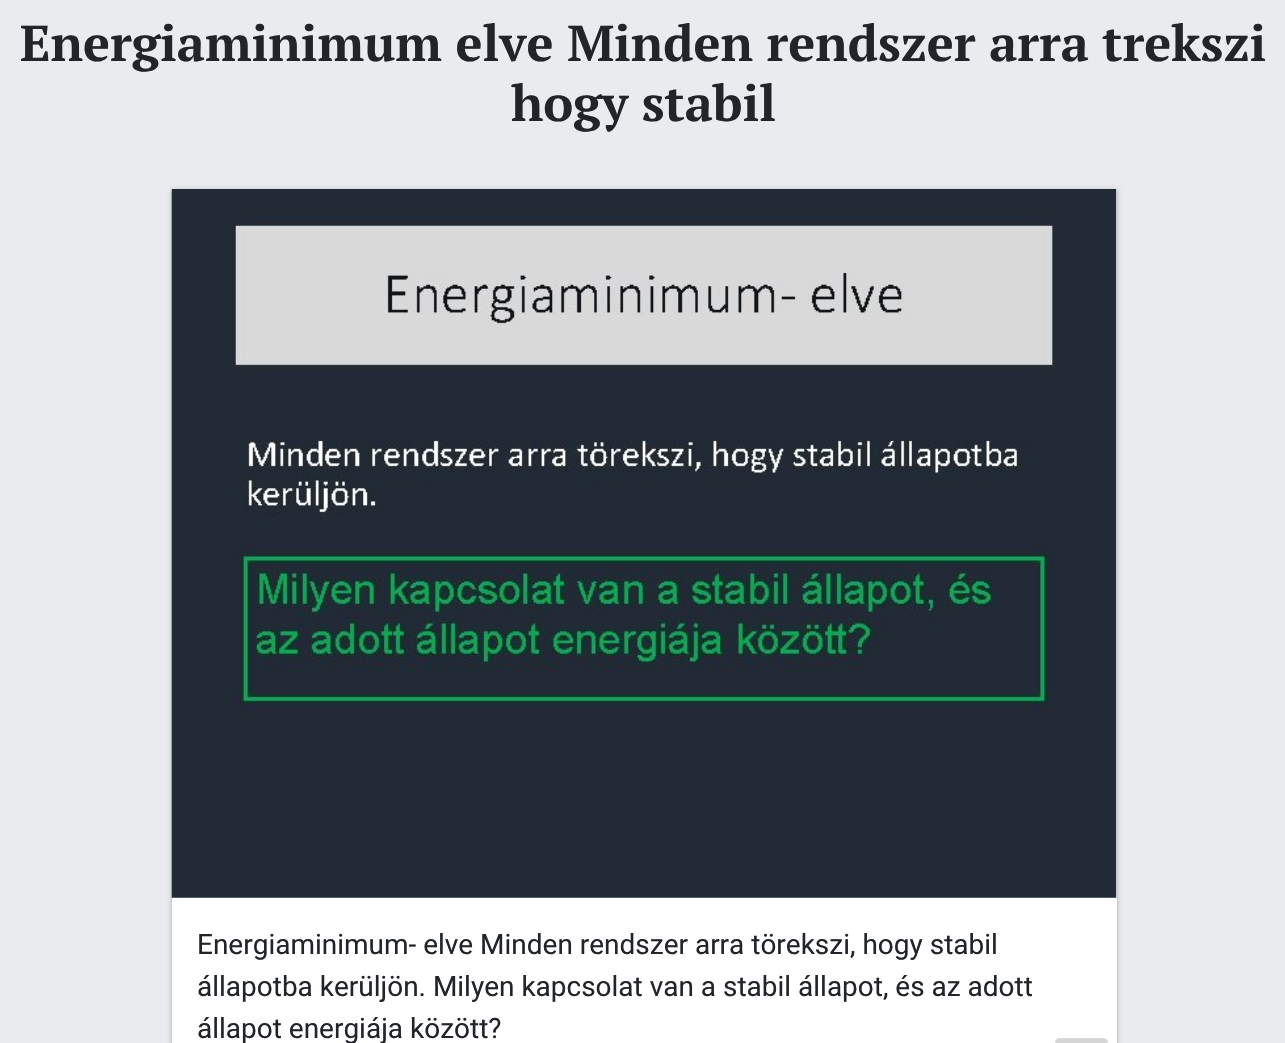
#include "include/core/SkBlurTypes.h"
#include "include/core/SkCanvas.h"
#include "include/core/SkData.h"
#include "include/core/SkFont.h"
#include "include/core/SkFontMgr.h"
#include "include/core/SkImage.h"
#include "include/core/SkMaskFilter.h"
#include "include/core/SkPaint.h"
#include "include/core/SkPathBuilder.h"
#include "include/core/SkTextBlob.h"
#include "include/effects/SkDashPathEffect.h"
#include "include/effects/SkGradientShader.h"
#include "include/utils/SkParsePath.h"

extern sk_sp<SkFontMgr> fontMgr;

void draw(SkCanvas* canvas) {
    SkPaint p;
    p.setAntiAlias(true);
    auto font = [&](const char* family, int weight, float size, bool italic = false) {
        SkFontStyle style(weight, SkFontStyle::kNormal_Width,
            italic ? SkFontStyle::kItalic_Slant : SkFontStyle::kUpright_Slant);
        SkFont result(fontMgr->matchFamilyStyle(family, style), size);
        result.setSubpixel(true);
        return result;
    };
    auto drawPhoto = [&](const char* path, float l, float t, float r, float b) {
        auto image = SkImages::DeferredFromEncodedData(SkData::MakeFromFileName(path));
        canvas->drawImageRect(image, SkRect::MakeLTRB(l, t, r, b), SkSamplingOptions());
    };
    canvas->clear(0xFFE9EBEE);
    p.setColor(0xFFEDEDED);
    canvas->drawRect(SkRect::MakeLTRB(0, 151, 1285, 153), p);
    auto font1 = font("PT Serif", 700, 50.4f);
    p.setColor(0xFF212529);
    canvas->drawString("Energiaminimum elve Minden rendszer arra trekszi", 20, 61, font1, p);
    canvas->drawString("hogy stabil", 511, 121, font1, p);
    p.setColor(0x1A000000);
    p.setMaskFilter(SkMaskFilter::MakeBlur(kNormal_SkBlurStyle, 2.5f));
    canvas->drawRect(SkRect::MakeLTRB(172, 189, 1117, 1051), p);
    p.setMaskFilter(nullptr);
    p.setColor(0x33000000);
    p.setMaskFilter(SkMaskFilter::MakeBlur(kNormal_SkBlurStyle, 2));
    canvas->drawRect(SkRect::MakeLTRB(172, 191, 1117, 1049), p);
    p.setMaskFilter(nullptr);
    p.setColor(0xFFFFFFFF);
    canvas->drawRect(SkRect::MakeLTRB(172, 189, 1117, 1043), p);
    drawPhoto("media/1.png", 171, 189, 1117, 898);
    auto font2 = font("Roboto", 400, 28);
    p.setColor(0xFF212529);
    {
        const struct { const char* s; float x, y; } items[] = {
            {"Energiaminimum- elve Minden rendszer arra törekszi, hogy stabil", 197, 954},
            {"állapotba kerüljön. Milyen kapcsolat van a stabil állapot, és az adott", 197, 996},
            {"állapot energiája között?", 197, 1038},
        };
        for (auto [s, x, y] : items) {
            canvas->drawString(s, x, y, font2, p);
        }
    }
    p.setColor(0xFFD6D6D6);
    canvas->drawRoundRect(SkRect::MakeLTRB(1055, 1038, 1108, 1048), 5, 5, p);
}
